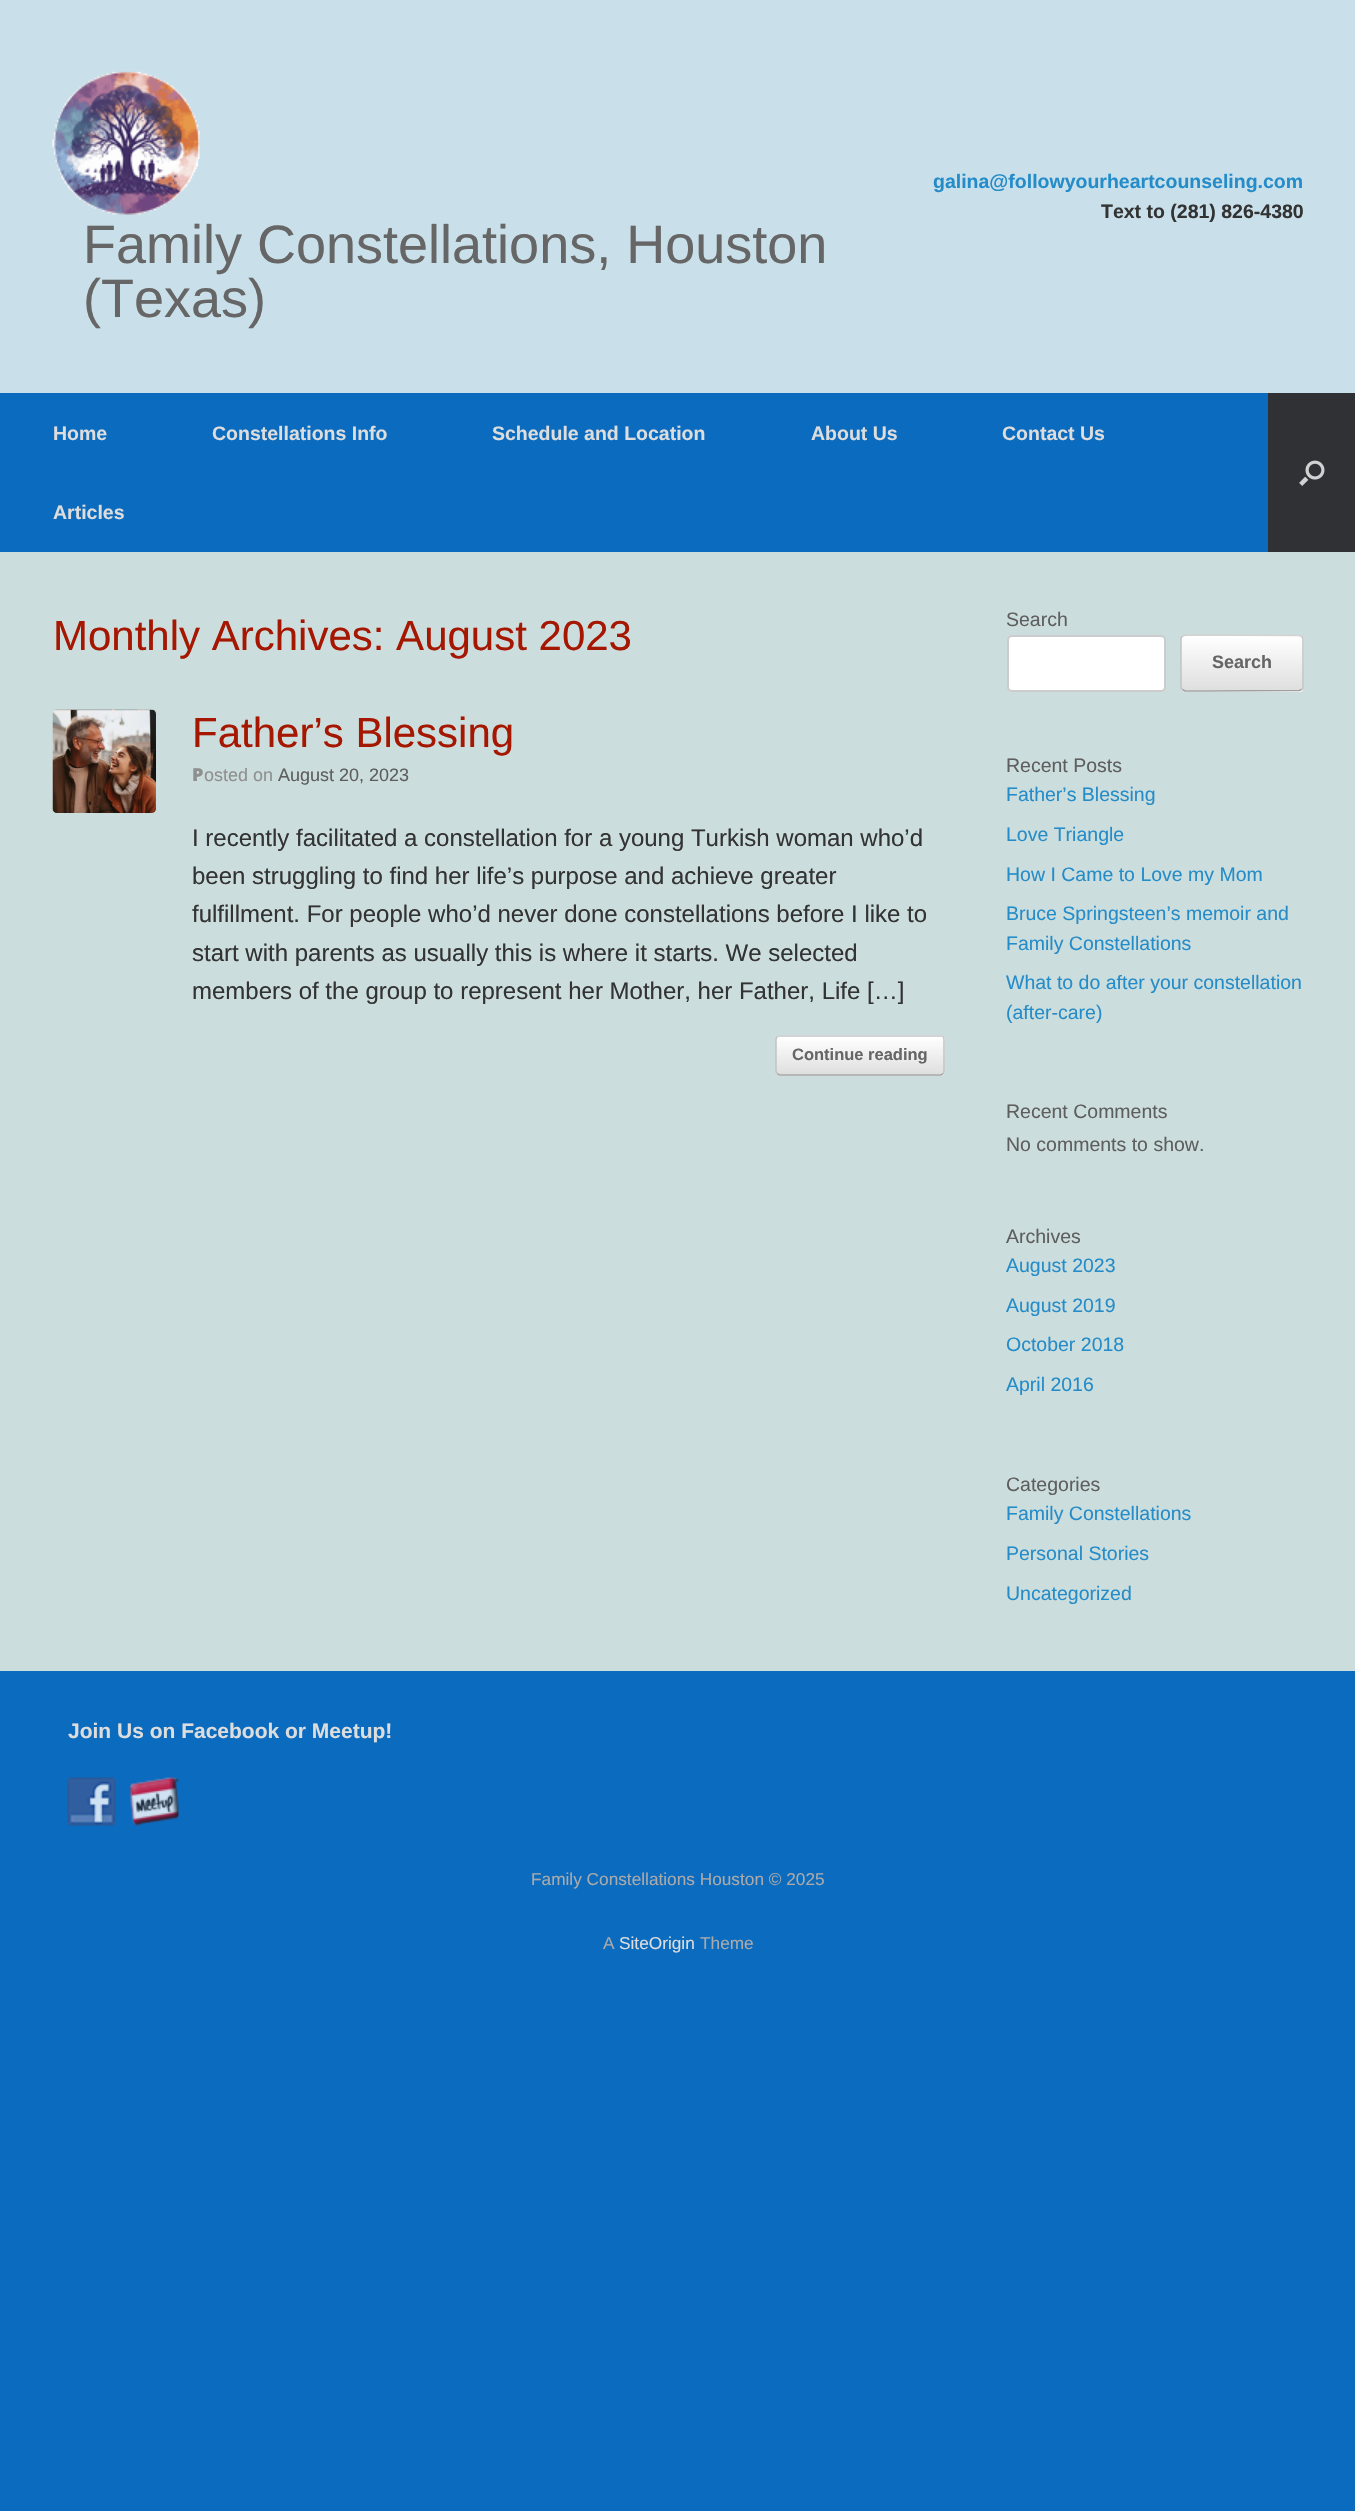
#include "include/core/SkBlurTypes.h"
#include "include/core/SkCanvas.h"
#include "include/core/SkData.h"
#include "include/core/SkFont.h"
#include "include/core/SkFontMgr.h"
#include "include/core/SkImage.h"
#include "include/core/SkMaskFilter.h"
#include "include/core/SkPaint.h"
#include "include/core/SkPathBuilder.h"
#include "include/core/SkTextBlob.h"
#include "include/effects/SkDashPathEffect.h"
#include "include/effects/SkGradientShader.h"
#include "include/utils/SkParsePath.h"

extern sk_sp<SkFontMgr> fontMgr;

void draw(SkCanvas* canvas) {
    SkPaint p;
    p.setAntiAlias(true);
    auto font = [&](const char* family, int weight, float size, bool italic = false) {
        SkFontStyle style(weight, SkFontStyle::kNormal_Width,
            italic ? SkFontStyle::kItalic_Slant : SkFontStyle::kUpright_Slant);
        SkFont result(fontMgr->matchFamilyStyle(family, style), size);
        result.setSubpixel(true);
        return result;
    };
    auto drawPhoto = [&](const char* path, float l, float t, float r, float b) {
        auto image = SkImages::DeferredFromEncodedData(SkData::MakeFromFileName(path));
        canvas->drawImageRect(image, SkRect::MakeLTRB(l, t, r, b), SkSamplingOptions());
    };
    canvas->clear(0xFF0B6BBF);
    p.setColor(0xFFC9E0EA);
    canvas->drawRect(SkRect::MakeLTRB(0, 0, 1355, 393), p);
    auto font1 = font("Liberation Sans", 700, 19.5f);
    p.setColor(0xFF248CC8);
    canvas->drawString("galina@followyourheartcounseling.com", 933, 188, font1, p);
    p.setColor(0xFF333333);
    canvas->drawString("Text to (281) 826-4380", 1101, 218, font1, p);
    drawPhoto("media/1.png", 52, 71, 200, 215);
    auto font2 = font("Liberation Sans", 400, 54);
    p.setColor(0xFF666666);
    canvas->drawString("Family Constellations, Houston", 83, 263, font2, p);
    canvas->drawString("(Texas)", 83, 317, font2, p);
    p.setColor(0xFFDDDDDD);
    {
        const struct { const char* s; float x, y; } items[] = {
            {"Home", 53, 440},
            {"Constellations Info", 212, 440},
            {"Schedule and Location", 492, 440},
            {"About Us", 811, 440},
            {"Contact Us", 1002, 440},
            {"Articles", 53, 519},
        };
        for (auto [s, x, y] : items) {
            canvas->drawString(s, x, y, font1, p);
        }
    }
    p.setColor(0xFF303134);
    canvas->drawRect(SkRect::MakeLTRB(1268, 393, 1355, 552), p);
    drawPhoto("media/2.png", 1299, 460, 1325, 486);
    p.setColor(0xFFCCDDDD);
    canvas->drawRect(SkRect::MakeLTRB(0, 552, 1355, 1671), p);
    auto font3 = font("Liberation Sans", 400, 42);
    p.setColor(0xFFA51701);
    canvas->drawString("Monthly Archives: August 2023", 53, 650, font3, p);
    drawPhoto("media/3.png", 52, 709, 156, 813);
    canvas->drawString("Father’s Blessing", 192, 747, font3, p);
    auto font4 = font("Noto Sans", 900, 18);
    p.setColor(0xFF8F8F8F);
    canvas->drawString("P", 192, 781, font4, p);
    auto font5 = font("Liberation Sans", 400, 18);
    canvas->drawString("osted on", 204, 781, font5, p);
    p.setColor(0xFF5E5E5E);
    canvas->drawString("August 20, 2023", 278, 781, font5, p);
    auto font6 = font("Liberation Sans", 400, 24);
    p.setColor(0xFF333333);
    {
        const struct { const char* s; float x, y; } items[] = {
            {"I recently facilitated a constellation for a young Turkish woman who’d", 192, 846},
            {"been struggling to find her life’s purpose and achieve greater", 192, 884},
            {"fulfillment. For people who’d never done constellations before I like to", 192, 922},
            {"start with parents as usually this is where it starts. We selected", 192, 961},
            {"members of the group to represent her Mother, her Father, Life […]", 192, 999},
        };
        for (auto [s, x, y] : items) {
            canvas->drawString(s, x, y, font6, p);
        }
    }
    canvas->save();
    canvas->clipPath(SkPathBuilder().moveTo(781, 1035).lineTo(940, 1035).cubicTo(943, 1035, 945, 1037, 945, 1040).lineTo(945, 1071).cubicTo(945, 1074, 943, 1076, 940, 1076).lineTo(781, 1076).cubicTo(778, 1076, 776, 1074, 776, 1071).lineTo(776, 1040).cubicTo(776, 1037, 778, 1035, 781, 1035).close().detach(), true);
    {
        const SkColor colors[] = {0xFFDFDFDF, 0xFFFFFFFF};
        const float stops[] = {0, 1};
        const SkPoint ends[] = {{777, 1074}, {777, 1037}};
        p.setShader(SkGradientShader::MakeLinear(ends, colors, stops, 2, SkTileMode::kClamp));
        p.setAlpha(255);
    }
    canvas->drawRect(SkRect::MakeLTRB(776, 1037, 945, 1074), p);
    {
        const SkColor colors[] = {0xFFDFDFDF, 0xFFFFFFFF};
        const float stops[] = {0, 1};
        const SkPoint ends[] = {{777, 1112}, {777, 1074}};
        p.setShader(SkGradientShader::MakeLinear(ends, colors, stops, 2, SkTileMode::kClamp));
        p.setAlpha(255);
    }
    canvas->drawRect(SkRect::MakeLTRB(776, 1074, 945, 1076), p);
    canvas->restore();
    p.setStyle(SkPaint::kStroke_Style);
    p.setStrokeWidth(1.5f);
    p.setShader(nullptr);
    p.setColor(0xFFD2D2D2);
    canvas->drawPath(SkPathBuilder().moveTo(777.5f, 1037).cubicTo(778, 1036, 779, 1036, 780, 1036).lineTo(940.5f, 1036).cubicTo(941.5f, 1036, 942.5f, 1036, 943, 1037).detach(), p);
    p.setColor(0xFFC3C3C3);
    canvas->drawPath(SkPathBuilder().moveTo(943, 1037).cubicTo(944, 1037.5f, 944, 1038.5f, 944, 1039.5f).lineTo(944, 1071).cubicTo(944, 1072, 944, 1073, 943, 1073.5f).detach(), p);
    p.setColor(0xFF9F9F9F);
    canvas->drawPath(SkPathBuilder().moveTo(943, 1073.5f).cubicTo(942.5f, 1074.5f, 941.5f, 1075, 940.5f, 1075).lineTo(780, 1075).cubicTo(779, 1075, 778, 1074.5f, 777.5f, 1073.5f).detach(), p);
    p.setColor(0xFFC3C3C3);
    canvas->drawPath(SkPathBuilder().moveTo(777.5f, 1073.5f).cubicTo(776.5f, 1073, 776, 1072, 776, 1071).lineTo(776, 1039.5f).cubicTo(776, 1038.5f, 776.5f, 1037.5f, 777.5f, 1037).detach(), p);
    auto font7 = font("Liberation Sans", 700, 16.5f);
    p.setStyle(SkPaint::kFill_Style);
    p.setColor(0xFF666666);
    canvas->drawString("Continue reading", 792, 1060, font7, p);
    auto font8 = font("Liberation Sans", 400, 19.5f);
    p.setColor(0xFF5E5E5E);
    canvas->drawString("Search", 1006, 626, font8, p);
    p.setColor(0xFFFFFFFF);
    canvas->drawRoundRect(SkRect::MakeLTRB(1008, 636, 1165, 691), 4, 4, p);
    p.setStyle(SkPaint::kStroke_Style);
    p.setStrokeWidth(2);
    p.setColor(0xFFCCCCCC);
    canvas->drawRoundRect(SkRect::MakeLTRB(1008, 636, 1165, 691), 4, 4, p);
    canvas->save();
    canvas->clipPath(SkPathBuilder().moveTo(1186, 635).lineTo(1299, 635).cubicTo(1302, 635, 1304, 637, 1304, 640).lineTo(1304, 687).cubicTo(1304, 690, 1302, 692, 1299, 692).lineTo(1186, 692).cubicTo(1183, 692, 1181, 690, 1181, 687).lineTo(1181, 640).cubicTo(1181, 637, 1183, 635, 1186, 635).close().detach(), true);
    p.setStyle(SkPaint::kFill_Style);
    {
        const SkColor colors[] = {0xFFDFDFDF, 0xFFFFFFFF};
        const float stops[] = {0, 1};
        const SkPoint ends[] = {{1182, 690}, {1182, 636}};
        p.setShader(SkGradientShader::MakeLinear(ends, colors, stops, 2, SkTileMode::kClamp));
        p.setAlpha(255);
    }
    canvas->drawRect(SkRect::MakeLTRB(1181, 636, 1304, 690), p);
    {
        const SkColor colors[] = {0xFFDFDFDF, 0xFFFFFFFF};
        const float stops[] = {0, 1};
        const SkPoint ends[] = {{1182, 744}, {1182, 690}};
        p.setShader(SkGradientShader::MakeLinear(ends, colors, stops, 2, SkTileMode::kClamp));
        p.setAlpha(255);
    }
    canvas->drawRect(SkRect::MakeLTRB(1181, 690, 1304, 692), p);
    canvas->restore();
    p.setStyle(SkPaint::kStroke_Style);
    p.setStrokeWidth(1.5f);
    p.setShader(nullptr);
    p.setColor(0xFFD2D2D2);
    canvas->drawPath(SkPathBuilder().moveTo(1182.5f, 636.5f).lineTo(1185, 635).lineTo(1299.5f, 635.5f).lineTo(1301.5f, 636.5f).detach(), p);
    p.setColor(0xFFC3C3C3);
    canvas->drawPath(SkPathBuilder().moveTo(1301.5f, 636.5f).cubicTo(1302.5f, 637, 1303, 638, 1303, 639).lineTo(1303, 687).cubicTo(1303, 688, 1302.5f, 689, 1301.5f, 689.5f).detach(), p);
    p.setColor(0xFF9F9F9F);
    canvas->drawPath(SkPathBuilder().moveTo(1301.5f, 689.5f).lineTo(1299.5f, 690.5f).lineTo(1204, 691).lineTo(1185, 691).lineTo(1182.5f, 689.5f).detach(), p);
    p.setColor(0xFFC3C3C3);
    canvas->drawPath(SkPathBuilder().moveTo(1182.5f, 689.5f).cubicTo(1181.5f, 689, 1181, 688, 1181, 687).lineTo(1181, 639).cubicTo(1181, 638, 1181.5f, 637, 1182.5f, 636.5f).detach(), p);
    auto font9 = font("Liberation Sans", 700, 18);
    p.setStyle(SkPaint::kFill_Style);
    p.setColor(0xFF666666);
    canvas->drawString("Search", 1212, 668, font9, p);
    p.setColor(0xFF5E5E5E);
    canvas->drawString("Recent Posts", 1006, 772, font8, p);
    p.setColor(0xFF248CC8);
    {
        const struct { const char* s; float x, y; } items[] = {
            {"Father’s Blessing", 1006, 801},
            {"Love Triangle", 1006, 841},
            {"How I Came to Love my Mom", 1006, 881},
            {"Bruce Springsteen’s memoir and", 1006, 920},
            {"Family Constellations", 1006, 950},
            {"What to do after your constellation", 1006, 989},
            {"(after-care)", 1006, 1019},
        };
        for (auto [s, x, y] : items) {
            canvas->drawString(s, x, y, font8, p);
        }
    }
    p.setColor(0xFF5E5E5E);
    {
        const struct { const char* s; float x, y; } items[] = {
            {"Recent Comments", 1006, 1118},
            {"No comments to show.", 1006, 1151},
            {"Archives", 1006, 1243},
        };
        for (auto [s, x, y] : items) {
            canvas->drawString(s, x, y, font8, p);
        }
    }
    p.setColor(0xFF248CC8);
    {
        const struct { const char* s; float x, y; } items[] = {
            {"August 2023", 1006, 1272},
            {"August 2019", 1006, 1312},
            {"October 2018", 1006, 1351},
            {"April 2016", 1006, 1391},
        };
        for (auto [s, x, y] : items) {
            canvas->drawString(s, x, y, font8, p);
        }
    }
    p.setColor(0xFF5E5E5E);
    canvas->drawString("Categories", 1006, 1491, font8, p);
    p.setColor(0xFF248CC8);
    {
        const struct { const char* s; float x, y; } items[] = {
            {"Family Constellations", 1006, 1520},
            {"Personal Stories", 1006, 1560},
            {"Uncategorized", 1006, 1600},
        };
        for (auto [s, x, y] : items) {
            canvas->drawString(s, x, y, font8, p);
        }
    }
    auto font10 = font("Liberation Sans", 700, 21);
    p.setColor(0xFFDDDDDD);
    canvas->drawString("Join Us on Facebook or Meetup!", 68, 1738, font10, p);
    drawPhoto("media/4.png", 67, 1777, 116, 1826);
    drawPhoto("media/5.png", 130, 1777, 179, 1826);
    auto font11 = font("Liberation Sans", 400, 17.25f);
    p.setColor(0xFFAAAAAA);
    canvas->drawString("Family Constellations Houston © 2025", 531, 1885, font11, p);
    canvas->drawString("A", 603, 1949, font11, p);
    p.setColor(0xFFDDDDDD);
    canvas->drawString("SiteOrigin", 619, 1949, font11, p);
    p.setColor(0xFFAAAAAA);
    canvas->drawString("Theme", 700, 1949, font11, p);
}
